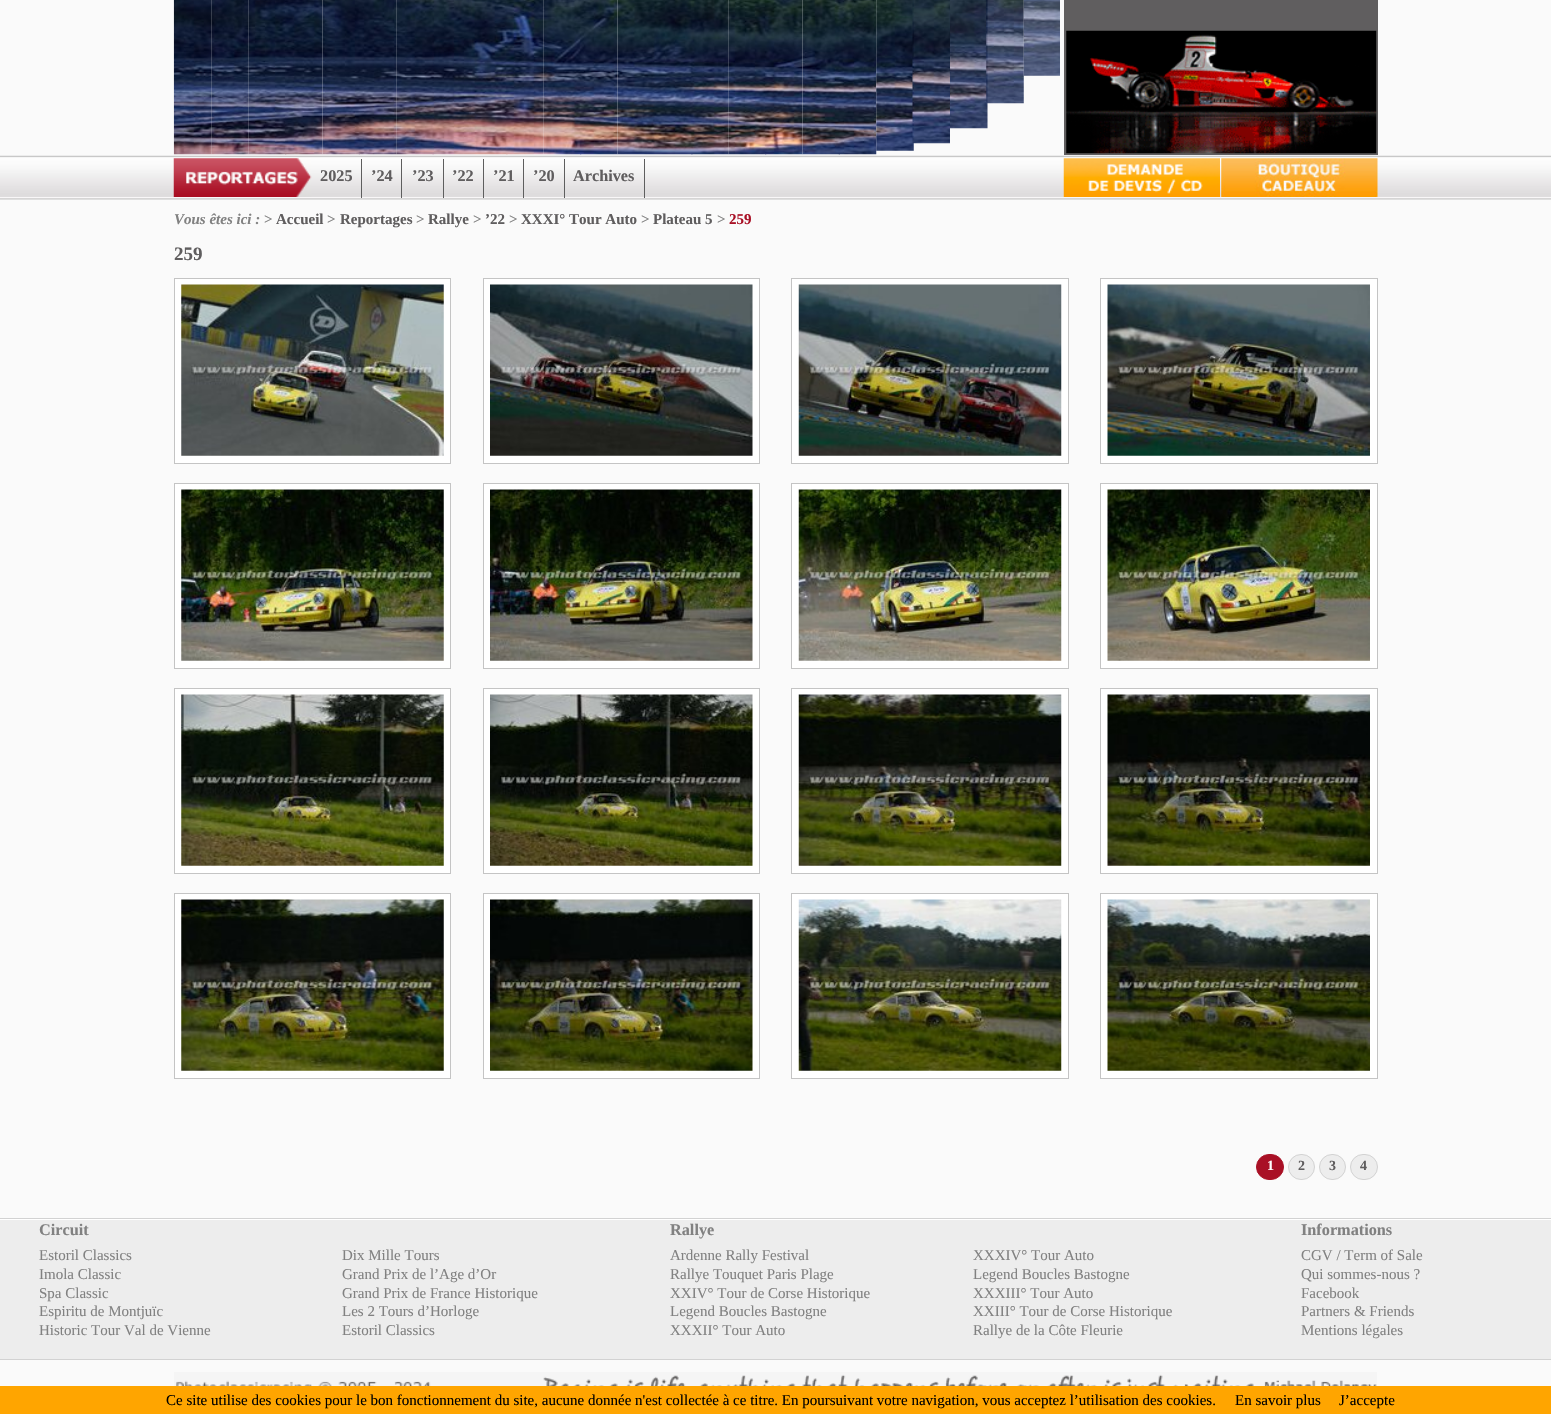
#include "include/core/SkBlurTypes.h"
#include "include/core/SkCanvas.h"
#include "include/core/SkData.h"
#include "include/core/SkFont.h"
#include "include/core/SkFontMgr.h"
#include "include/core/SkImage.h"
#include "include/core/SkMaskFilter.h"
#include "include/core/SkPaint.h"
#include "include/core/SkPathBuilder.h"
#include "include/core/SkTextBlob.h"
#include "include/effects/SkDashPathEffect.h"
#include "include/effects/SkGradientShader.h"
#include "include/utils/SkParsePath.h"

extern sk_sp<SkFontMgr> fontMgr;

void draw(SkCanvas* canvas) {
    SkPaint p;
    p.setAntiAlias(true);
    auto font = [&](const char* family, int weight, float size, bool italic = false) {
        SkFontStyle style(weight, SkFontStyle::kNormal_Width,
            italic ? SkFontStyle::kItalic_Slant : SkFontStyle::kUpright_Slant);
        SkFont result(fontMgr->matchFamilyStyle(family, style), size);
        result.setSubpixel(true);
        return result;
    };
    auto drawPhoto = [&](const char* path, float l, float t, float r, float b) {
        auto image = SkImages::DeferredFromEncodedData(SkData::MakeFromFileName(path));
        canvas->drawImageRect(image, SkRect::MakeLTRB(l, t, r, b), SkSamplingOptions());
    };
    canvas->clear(0xFFFAFAFA);
    drawPhoto("media/1.png", 0, 155, 1551, 200);
    drawPhoto("media/2.png", 173, 0, 212, 155);
    drawPhoto("media/3.png", 211, 0, 249, 155);
    drawPhoto("media/4.png", 248, 0, 287, 155);
    drawPhoto("media/5.png", 285, 0, 323, 155);
    drawPhoto("media/6.png", 322, 0, 360, 155);
    drawPhoto("media/7.png", 358, 0, 397, 155);
    drawPhoto("media/8.png", 396, 0, 434, 155);
    drawPhoto("media/9.png", 432, 0, 470, 155);
    drawPhoto("media/10.png", 470, 0, 508, 155);
    drawPhoto("media/11.png", 506, 0, 544, 155);
    drawPhoto("media/12.png", 543, 0, 582, 155);
    drawPhoto("media/13.png", 580, 0, 618, 155);
    drawPhoto("media/14.png", 617, 0, 655, 155);
    drawPhoto("media/15.png", 655, 0, 693, 155);
    drawPhoto("media/16.png", 691, 0, 729, 155);
    drawPhoto("media/17.png", 728, 0, 767, 155);
    drawPhoto("media/18.png", 765, 0, 803, 155);
    drawPhoto("media/19.png", 802, 0, 840, 155);
    drawPhoto("media/20.png", 838, 0, 877, 155);
    drawPhoto("media/21.png", 876, 0, 914, 151);
    drawPhoto("media/22.png", 912, 0, 950, 144);
    drawPhoto("media/23.png", 950, 0, 988, 129);
    drawPhoto("media/24.png", 986, 0, 1024, 104);
    drawPhoto("media/25.png", 1023, 0, 1060, 76);
    p.setColor(0xFF605E5F);
    canvas->drawRect(SkRect::MakeLTRB(1064, 0, 1378, 155), p);
    drawPhoto("media/26.png", 1066, 30, 1377, 154);
    drawPhoto("media/27.png", 173, 158, 312, 197);
    p.setColor(0xFF5E5E5E);
    canvas->drawRect(SkRect::MakeLTRB(361, 159, 362, 198), p);
    auto font1 = font("Liberation Serif", 700, 16.25f);
    p.setColor(0xFF5F5D5E);
    canvas->drawString("2025", 320, 181, font1, p);
    p.setColor(0xFF5E5E5E);
    canvas->drawRect(SkRect::MakeLTRB(401, 159, 402, 198), p);
    p.setColor(0xFF5F5D5E);
    canvas->drawString("’24", 371, 181, font1, p);
    p.setColor(0xFF5E5E5E);
    canvas->drawRect(SkRect::MakeLTRB(443, 159, 444, 198), p);
    p.setColor(0xFF5F5D5E);
    canvas->drawString("’23", 412, 181, font1, p);
    p.setColor(0xFF5E5E5E);
    canvas->drawRect(SkRect::MakeLTRB(483, 159, 484, 198), p);
    p.setColor(0xFF5F5D5E);
    canvas->drawString("’22", 452, 181, font1, p);
    p.setColor(0xFF5E5E5E);
    canvas->drawRect(SkRect::MakeLTRB(523, 159, 524, 198), p);
    p.setColor(0xFF5F5D5E);
    canvas->drawString("’21", 493, 181, font1, p);
    p.setColor(0xFF5E5E5E);
    canvas->drawRect(SkRect::MakeLTRB(564, 159, 565, 198), p);
    p.setColor(0xFF5F5D5E);
    canvas->drawString("’20", 533, 181, font1, p);
    p.setColor(0xFF5E5E5E);
    canvas->drawRect(SkRect::MakeLTRB(644, 159, 645, 198), p);
    p.setColor(0xFF5F5D5E);
    canvas->drawString("Archives", 573, 181, font1, p);
    drawPhoto("media/28.png", 1063, 158, 1220, 197);
    drawPhoto("media/29.png", 1221, 158, 1378, 197);
    auto font2 = font("Liberation Serif", 700, 15, true);
    p.setColor(0xFF818181);
    canvas->drawString("Vous êtes ici :", 174, 224, font2, p);
    auto font3 = font("Liberation Serif", 700, 15);
    canvas->drawString(">", 264, 224, font3, p);
    p.setColor(0xFF5F5D5E);
    canvas->drawString("Accueil", 276, 224, font3, p);
    p.setColor(0xFF818181);
    canvas->drawString(">", 327, 224, font3, p);
    p.setColor(0xFF5F5D5E);
    canvas->drawString("Reportages", 340, 224, font3, p);
    p.setColor(0xFF818181);
    canvas->drawString(">", 416, 224, font3, p);
    p.setColor(0xFF5F5D5E);
    canvas->drawString("Rallye", 428, 224, font3, p);
    p.setColor(0xFF818181);
    canvas->drawString(">", 473, 224, font3, p);
    p.setColor(0xFF5F5D5E);
    canvas->drawString("’22", 485, 224, font3, p);
    p.setColor(0xFF818181);
    canvas->drawString(">", 509, 224, font3, p);
    p.setColor(0xFF5F5D5E);
    canvas->drawString("XXXI° Tour Auto", 521, 224, font3, p);
    p.setColor(0xFF818181);
    canvas->drawString(">", 641, 224, font3, p);
    p.setColor(0xFF5F5D5E);
    canvas->drawString("Plateau 5", 653, 224, font3, p);
    p.setColor(0xFF818181);
    canvas->drawString(">", 717, 224, font3, p);
    p.setColor(0xFFA91025);
    canvas->drawString("259", 729, 224, font3, p);
    auto font4 = font("Liberation Serif", 700, 19);
    p.setColor(0xFF5F5D5E);
    canvas->drawString("259", 174, 260, font4, p);
    p.setColor(0xFFFFFFFF);
    canvas->drawRect(SkRect::MakeLTRB(174.5f, 278.5f, 450.5f, 463.5f), p);
    p.setStyle(SkPaint::kStroke_Style);
    p.setStrokeWidth(1);
    p.setColor(0xFFC4C4C4);
    canvas->drawRect(SkRect::MakeLTRB(174.5f, 278.5f, 450.5f, 463.5f), p);
    drawPhoto("media/30.png", 181, 284, 444, 456);
    p.setStyle(SkPaint::kFill_Style);
    p.setColor(0xFFFFFFFF);
    canvas->drawRect(SkRect::MakeLTRB(483.5f, 278.5f, 759.5f, 463.5f), p);
    p.setStyle(SkPaint::kStroke_Style);
    p.setColor(0xFFC4C4C4);
    canvas->drawRect(SkRect::MakeLTRB(483.5f, 278.5f, 759.5f, 463.5f), p);
    drawPhoto("media/31.png", 490, 284, 753, 456);
    p.setStyle(SkPaint::kFill_Style);
    p.setColor(0xFFFFFFFF);
    canvas->drawRect(SkRect::MakeLTRB(791.5f, 278.5f, 1068.5f, 463.5f), p);
    p.setStyle(SkPaint::kStroke_Style);
    p.setColor(0xFFC4C4C4);
    canvas->drawRect(SkRect::MakeLTRB(791.5f, 278.5f, 1068.5f, 463.5f), p);
    drawPhoto("media/32.png", 798, 284, 1062, 456);
    p.setStyle(SkPaint::kFill_Style);
    p.setColor(0xFFFFFFFF);
    canvas->drawRect(SkRect::MakeLTRB(1100.5f, 278.5f, 1377.5f, 463.5f), p);
    p.setStyle(SkPaint::kStroke_Style);
    p.setColor(0xFFC4C4C4);
    canvas->drawRect(SkRect::MakeLTRB(1100.5f, 278.5f, 1377.5f, 463.5f), p);
    drawPhoto("media/33.png", 1107, 284, 1370, 456);
    p.setStyle(SkPaint::kFill_Style);
    p.setColor(0xFFFFFFFF);
    canvas->drawRect(SkRect::MakeLTRB(174.5f, 483.5f, 450.5f, 668.5f), p);
    p.setStyle(SkPaint::kStroke_Style);
    p.setColor(0xFFC4C4C4);
    canvas->drawRect(SkRect::MakeLTRB(174.5f, 483.5f, 450.5f, 668.5f), p);
    drawPhoto("media/34.png", 181, 489, 444, 661);
    p.setStyle(SkPaint::kFill_Style);
    p.setColor(0xFFFFFFFF);
    canvas->drawRect(SkRect::MakeLTRB(483.5f, 483.5f, 759.5f, 668.5f), p);
    p.setStyle(SkPaint::kStroke_Style);
    p.setColor(0xFFC4C4C4);
    canvas->drawRect(SkRect::MakeLTRB(483.5f, 483.5f, 759.5f, 668.5f), p);
    drawPhoto("media/35.png", 490, 489, 753, 661);
    p.setStyle(SkPaint::kFill_Style);
    p.setColor(0xFFFFFFFF);
    canvas->drawRect(SkRect::MakeLTRB(791.5f, 483.5f, 1068.5f, 668.5f), p);
    p.setStyle(SkPaint::kStroke_Style);
    p.setColor(0xFFC4C4C4);
    canvas->drawRect(SkRect::MakeLTRB(791.5f, 483.5f, 1068.5f, 668.5f), p);
    drawPhoto("media/36.png", 798, 489, 1062, 661);
    p.setStyle(SkPaint::kFill_Style);
    p.setColor(0xFFFFFFFF);
    canvas->drawRect(SkRect::MakeLTRB(1100.5f, 483.5f, 1377.5f, 668.5f), p);
    p.setStyle(SkPaint::kStroke_Style);
    p.setColor(0xFFC4C4C4);
    canvas->drawRect(SkRect::MakeLTRB(1100.5f, 483.5f, 1377.5f, 668.5f), p);
    drawPhoto("media/37.png", 1107, 489, 1370, 661);
    p.setStyle(SkPaint::kFill_Style);
    p.setColor(0xFFFFFFFF);
    canvas->drawRect(SkRect::MakeLTRB(174.5f, 688.5f, 450.5f, 873.5f), p);
    p.setStyle(SkPaint::kStroke_Style);
    p.setColor(0xFFC4C4C4);
    canvas->drawRect(SkRect::MakeLTRB(174.5f, 688.5f, 450.5f, 873.5f), p);
    drawPhoto("media/38.png", 181, 694, 444, 866);
    p.setStyle(SkPaint::kFill_Style);
    p.setColor(0xFFFFFFFF);
    canvas->drawRect(SkRect::MakeLTRB(483.5f, 688.5f, 759.5f, 873.5f), p);
    p.setStyle(SkPaint::kStroke_Style);
    p.setColor(0xFFC4C4C4);
    canvas->drawRect(SkRect::MakeLTRB(483.5f, 688.5f, 759.5f, 873.5f), p);
    drawPhoto("media/39.png", 490, 694, 753, 866);
    p.setStyle(SkPaint::kFill_Style);
    p.setColor(0xFFFFFFFF);
    canvas->drawRect(SkRect::MakeLTRB(791.5f, 688.5f, 1068.5f, 873.5f), p);
    p.setStyle(SkPaint::kStroke_Style);
    p.setColor(0xFFC4C4C4);
    canvas->drawRect(SkRect::MakeLTRB(791.5f, 688.5f, 1068.5f, 873.5f), p);
    drawPhoto("media/40.png", 798, 694, 1062, 866);
    p.setStyle(SkPaint::kFill_Style);
    p.setColor(0xFFFFFFFF);
    canvas->drawRect(SkRect::MakeLTRB(1100.5f, 688.5f, 1377.5f, 873.5f), p);
    p.setStyle(SkPaint::kStroke_Style);
    p.setColor(0xFFC4C4C4);
    canvas->drawRect(SkRect::MakeLTRB(1100.5f, 688.5f, 1377.5f, 873.5f), p);
    drawPhoto("media/41.png", 1107, 694, 1370, 866);
    p.setStyle(SkPaint::kFill_Style);
    p.setColor(0xFFFFFFFF);
    canvas->drawRect(SkRect::MakeLTRB(174.5f, 893.5f, 450.5f, 1078.5f), p);
    p.setStyle(SkPaint::kStroke_Style);
    p.setColor(0xFFC4C4C4);
    canvas->drawRect(SkRect::MakeLTRB(174.5f, 893.5f, 450.5f, 1078.5f), p);
    drawPhoto("media/42.png", 181, 899, 444, 1071);
    p.setStyle(SkPaint::kFill_Style);
    p.setColor(0xFFFFFFFF);
    canvas->drawRect(SkRect::MakeLTRB(483.5f, 893.5f, 759.5f, 1078.5f), p);
    p.setStyle(SkPaint::kStroke_Style);
    p.setColor(0xFFC4C4C4);
    canvas->drawRect(SkRect::MakeLTRB(483.5f, 893.5f, 759.5f, 1078.5f), p);
    drawPhoto("media/43.png", 490, 899, 753, 1071);
    p.setStyle(SkPaint::kFill_Style);
    p.setColor(0xFFFFFFFF);
    canvas->drawRect(SkRect::MakeLTRB(791.5f, 893.5f, 1068.5f, 1078.5f), p);
    p.setStyle(SkPaint::kStroke_Style);
    p.setColor(0xFFC4C4C4);
    canvas->drawRect(SkRect::MakeLTRB(791.5f, 893.5f, 1068.5f, 1078.5f), p);
    drawPhoto("media/44.png", 798, 899, 1062, 1071);
    p.setStyle(SkPaint::kFill_Style);
    p.setColor(0xFFFFFFFF);
    canvas->drawRect(SkRect::MakeLTRB(1100.5f, 893.5f, 1377.5f, 1078.5f), p);
    p.setStyle(SkPaint::kStroke_Style);
    p.setColor(0xFFC4C4C4);
    canvas->drawRect(SkRect::MakeLTRB(1100.5f, 893.5f, 1377.5f, 1078.5f), p);
    drawPhoto("media/45.png", 1107, 899, 1370, 1071);
    p.setStyle(SkPaint::kFill_Style);
    p.setColor(0xFFA91025);
    canvas->drawRoundRect(SkRect::MakeLTRB(1256.5f, 1154.5f, 1283.5f, 1179.5f), 12.5f, 12.5f, p);
    p.setStyle(SkPaint::kStroke_Style);
    canvas->drawRoundRect(SkRect::MakeLTRB(1256.5f, 1154.5f, 1283.5f, 1179.5f), 12.5f, 12.5f, p);
    auto font5 = font("Liberation Serif", 700, 14);
    p.setStyle(SkPaint::kFill_Style);
    p.setColor(0xFFFFFFFF);
    canvas->drawString("1", 1267, 1170, font5, p);
    p.setColor(0xFFEDEDED);
    canvas->drawRoundRect(SkRect::MakeLTRB(1288.5f, 1154.5f, 1314.5f, 1179.5f), 12.5f, 12.5f, p);
    p.setStyle(SkPaint::kStroke_Style);
    p.setColor(0xFFD2D2D2);
    canvas->drawRoundRect(SkRect::MakeLTRB(1288.5f, 1154.5f, 1314.5f, 1179.5f), 12.5f, 12.5f, p);
    p.setStyle(SkPaint::kFill_Style);
    p.setColor(0xFF5F5D5E);
    canvas->drawString("2", 1298, 1170, font5, p);
    p.setColor(0xFFEDEDED);
    canvas->drawRoundRect(SkRect::MakeLTRB(1319.5f, 1154.5f, 1345.5f, 1179.5f), 12.5f, 12.5f, p);
    p.setStyle(SkPaint::kStroke_Style);
    p.setColor(0xFFD2D2D2);
    canvas->drawRoundRect(SkRect::MakeLTRB(1319.5f, 1154.5f, 1345.5f, 1179.5f), 12.5f, 12.5f, p);
    p.setStyle(SkPaint::kFill_Style);
    p.setColor(0xFF5F5D5E);
    canvas->drawString("3", 1329, 1170, font5, p);
    p.setColor(0xFFEDEDED);
    canvas->drawRoundRect(SkRect::MakeLTRB(1350.5f, 1154.5f, 1377.5f, 1179.5f), 12.5f, 12.5f, p);
    p.setStyle(SkPaint::kStroke_Style);
    p.setColor(0xFFD2D2D2);
    canvas->drawRoundRect(SkRect::MakeLTRB(1350.5f, 1154.5f, 1377.5f, 1179.5f), 12.5f, 12.5f, p);
    p.setStyle(SkPaint::kFill_Style);
    p.setColor(0xFF5F5D5E);
    canvas->drawString("4", 1360, 1170, font5, p);
    {
        const struct { float l, t, r, b; SkColor color; } items[] = {
            {0, 1220, 1551, 1359, 0xFFEDEDED},
            {0, 1218, 1551, 1219, 0xFFD2D2D2},
            {0, 1359, 1551, 1360, 0xFFD2D2D2},
            {0, 1219, 1551, 1220, 0xFFFFFFFF},
        };
        for (auto [l, t, r, b, color] : items) {
            p.setColor(color);
            canvas->drawRect(SkRect::MakeLTRB(l, t, r, b), p);
        }
    }
    p.setColor(0xFF818181);
    canvas->drawString("Circuit", 39, 1235, font1, p);
    auto font6 = font("Liberation Serif", 400, 15);
    {
        const struct { const char* s; float x, y; } items[] = {
            {"Estoril Classics", 39, 1260},
            {"Dix Mille Tours", 342, 1260},
            {"Imola Classic", 39, 1279},
            {"Grand Prix de l’Age d’Or", 342, 1279},
            {"Spa Classic", 39, 1298},
            {"Grand Prix de France Historique", 342, 1298},
            {"Espiritu de Montjuïc", 39, 1316},
            {"Les 2 Tours d’Horloge", 342, 1316},
            {"Historic Tour Val de Vienne", 39, 1335},
            {"Estoril Classics", 342, 1335},
        };
        for (auto [s, x, y] : items) {
            canvas->drawString(s, x, y, font6, p);
        }
    }
    canvas->drawString("Rallye", 670, 1235, font1, p);
    {
        const struct { const char* s; float x, y; } items[] = {
            {"Ardenne Rally Festival", 670, 1260},
            {"XXXIV° Tour Auto", 973, 1260},
            {"Rallye Touquet Paris Plage", 670, 1279},
            {"Legend Boucles Bastogne", 973, 1279},
            {"XXIV° Tour de Corse Historique", 670, 1298},
            {"XXXIII° Tour Auto", 973, 1298},
            {"Legend Boucles Bastogne", 670, 1316},
            {"XXIII° Tour de Corse Historique", 973, 1316},
            {"XXXII° Tour Auto", 670, 1335},
            {"Rallye de la Côte Fleurie", 973, 1335},
        };
        for (auto [s, x, y] : items) {
            canvas->drawString(s, x, y, font6, p);
        }
    }
    canvas->drawString("Informations", 1301, 1235, font1, p);
    {
        const struct { const char* s; float x, y; } items[] = {
            {"CGV / Term of Sale", 1301, 1260},
            {"Qui sommes-nous ?", 1301, 1279},
            {"Facebook", 1301, 1298},
            {"Partners & Friends", 1301, 1316},
            {"Mentions légales", 1301, 1335},
        };
        for (auto [s, x, y] : items) {
            canvas->drawString(s, x, y, font6, p);
        }
    }
    drawPhoto("media/46.png", 174, 1372, 1377, 1386);
    p.setColor(0xFFFFA500);
    canvas->drawRect(SkRect::MakeLTRB(0, 1386, 1551, 1414), p);
    p.setColor(0xFF000000);
    {
        const struct { const char* s; float x, y; } items[] = {
            {"Ce site utilise des cookies pour le bon fonctionnement du site, aucune donnée n'est collectée à ce titre. En poursuivant votre navigation, vous acceptez l’utilisation des cookies.", 166, 1405},
            {"En savoir plus", 1235, 1405},
            {"J’accepte", 1339, 1405},
        };
        for (auto [s, x, y] : items) {
            canvas->drawString(s, x, y, font6, p);
        }
    }
}
